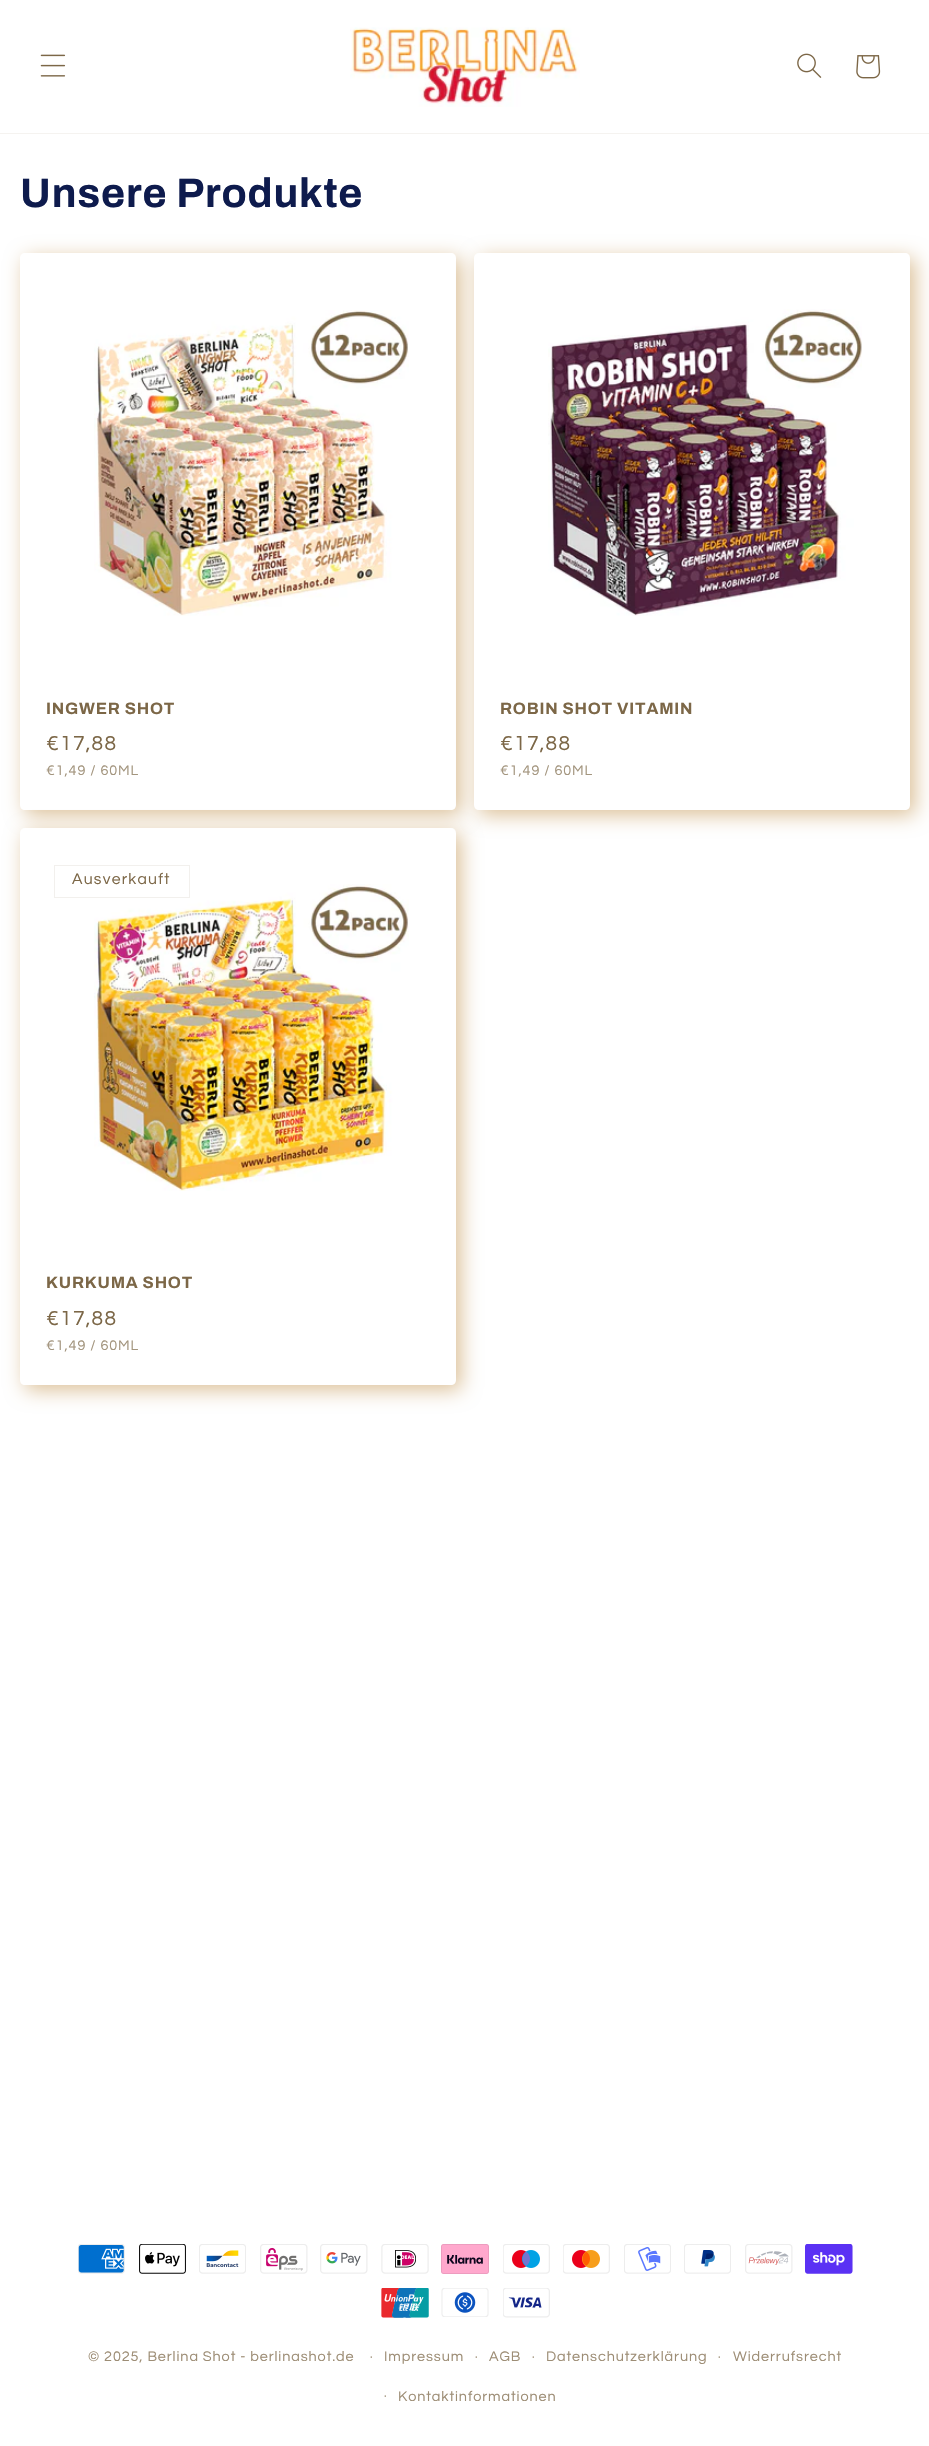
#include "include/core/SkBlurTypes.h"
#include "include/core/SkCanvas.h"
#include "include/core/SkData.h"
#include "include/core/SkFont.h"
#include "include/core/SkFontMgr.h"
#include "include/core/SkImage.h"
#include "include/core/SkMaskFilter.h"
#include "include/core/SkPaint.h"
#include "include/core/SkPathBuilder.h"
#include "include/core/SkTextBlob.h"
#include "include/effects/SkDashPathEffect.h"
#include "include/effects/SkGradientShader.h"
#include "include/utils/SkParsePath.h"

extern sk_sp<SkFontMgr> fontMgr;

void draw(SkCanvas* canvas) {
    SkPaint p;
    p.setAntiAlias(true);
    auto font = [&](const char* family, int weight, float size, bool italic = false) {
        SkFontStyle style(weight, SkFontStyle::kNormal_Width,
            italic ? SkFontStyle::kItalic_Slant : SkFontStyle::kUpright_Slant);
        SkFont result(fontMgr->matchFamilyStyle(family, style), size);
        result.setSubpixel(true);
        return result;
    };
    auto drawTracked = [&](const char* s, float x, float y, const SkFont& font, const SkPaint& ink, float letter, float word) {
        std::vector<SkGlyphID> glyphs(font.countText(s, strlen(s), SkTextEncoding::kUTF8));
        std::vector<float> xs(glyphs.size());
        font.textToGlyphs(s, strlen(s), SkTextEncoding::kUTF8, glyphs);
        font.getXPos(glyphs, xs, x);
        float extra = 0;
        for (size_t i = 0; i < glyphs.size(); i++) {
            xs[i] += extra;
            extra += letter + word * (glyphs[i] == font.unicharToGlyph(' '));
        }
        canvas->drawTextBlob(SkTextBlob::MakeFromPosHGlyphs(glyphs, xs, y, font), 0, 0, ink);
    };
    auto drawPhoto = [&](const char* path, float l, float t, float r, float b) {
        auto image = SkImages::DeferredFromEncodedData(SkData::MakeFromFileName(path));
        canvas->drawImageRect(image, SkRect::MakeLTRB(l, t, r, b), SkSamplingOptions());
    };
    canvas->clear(0xFFFFFFFF);
    p.setColor(0xFFF5F3F0);
    canvas->drawRect(SkRect::MakeLTRB(0, 133, 929, 134), p);
    drawPhoto("media/1.png", 40, 54, 66, 77);
    drawPhoto("media/2.png", 350, 27, 580, 107);
    drawPhoto("media/3.png", 797, 53, 822, 78);
    drawPhoto("media/4.png", 856, 55, 881, 79);
    auto font1 = font("Archivo", 700, 41.25f);
    p.setColor(0xFF0E1B4D);
    drawTracked("Unsere Produkte", 20, 207, font1, p, 0.8f, 0);
    canvas->save();
    canvas->clipPath(SkPathBuilder(SkPathFillType::kEvenOdd).moveTo(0, 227).lineTo(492, 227).lineTo(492, 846).lineTo(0, 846).close().moveTo(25, 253).lineTo(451, 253).cubicTo(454, 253, 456, 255, 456, 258).lineTo(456, 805).cubicTo(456, 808, 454, 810, 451, 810).lineTo(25, 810).cubicTo(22, 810, 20, 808, 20, 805).lineTo(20, 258).cubicTo(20, 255, 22, 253, 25, 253).close().detach(), true);
    p.setColor(0xFFDCC097);
    p.setMaskFilter(SkMaskFilter::MakeBlur(kNormal_SkBlurStyle, 10));
    canvas->drawRoundRect(SkRect::MakeLTRB(25, 258, 461, 815), 5, 5, p);
    p.setMaskFilter(nullptr);
    canvas->restore();
    drawPhoto("media/5.png", 94, 310, 409, 616);
    auto font2 = font("Archivo", 700, 16.5f);
    p.setColor(0xFF7C6747);
    drawTracked("INGWER SHOT", 46, 714, font2, p, 0.8f, 0);
    auto font3 = font("Questrial", 400, 21);
    drawTracked("€17,88", 46, 750, font3, p, 1.25f, 0);
    auto font4 = font("Questrial", 400, 14.4f);
    p.setColor(0xFFA3957E);
    drawTracked("€1,49 / 60ML", 46, 775, font4, p, 0.9f, 0);
    p.setColor(0xFFFFFFFF);
    canvas->drawRoundRect(SkRect::MakeLTRB(474, 253, 910, 810), 5, 5, p);
    canvas->save();
    canvas->clipPath(SkPathBuilder(SkPathFillType::kEvenOdd).moveTo(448, 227).lineTo(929, 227).lineTo(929, 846).lineTo(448, 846).close().moveTo(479, 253).lineTo(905, 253).cubicTo(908, 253, 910, 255, 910, 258).lineTo(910, 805).cubicTo(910, 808, 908, 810, 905, 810).lineTo(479, 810).cubicTo(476, 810, 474, 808, 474, 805).lineTo(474, 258).cubicTo(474, 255, 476, 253, 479, 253).close().detach(), true);
    p.setColor(0xFFDCC097);
    p.setMaskFilter(SkMaskFilter::MakeBlur(kNormal_SkBlurStyle, 10));
    canvas->drawRoundRect(SkRect::MakeLTRB(479, 258, 915, 815), 5, 5, p);
    p.setMaskFilter(nullptr);
    canvas->restore();
    drawPhoto("media/6.png", 548, 309, 862, 616);
    p.setColor(0xFF7C6747);
    drawTracked("ROBIN SHOT VITAMIN", 500, 714, font2, p, 0.8f, 0);
    drawTracked("€17,88", 500, 750, font3, p, 1.25f, 0);
    p.setColor(0xFFA3957E);
    drawTracked("€1,49 / 60ML", 500, 775, font4, p, 0.9f, 0);
    p.setColor(0xFFFFFFFF);
    canvas->drawRoundRect(SkRect::MakeLTRB(20, 828, 456, 1385), 5, 5, p);
    canvas->save();
    canvas->clipPath(SkPathBuilder(SkPathFillType::kEvenOdd).moveTo(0, 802).lineTo(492, 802).lineTo(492, 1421).lineTo(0, 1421).close().moveTo(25, 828).lineTo(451, 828).cubicTo(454, 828, 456, 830, 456, 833).lineTo(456, 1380).cubicTo(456, 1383, 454, 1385, 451, 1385).lineTo(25, 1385).cubicTo(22, 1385, 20, 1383, 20, 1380).lineTo(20, 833).cubicTo(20, 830, 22, 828, 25, 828).close().detach(), true);
    p.setColor(0xFFDCC097);
    p.setMaskFilter(SkMaskFilter::MakeBlur(kNormal_SkBlurStyle, 10));
    canvas->drawRoundRect(SkRect::MakeLTRB(25, 833, 461, 1390), 5, 5, p);
    p.setMaskFilter(nullptr);
    canvas->restore();
    drawPhoto("media/7.png", 94, 884, 409, 1191);
    p.setStyle(SkPaint::kStroke_Style);
    p.setStrokeWidth(1);
    p.setColor(0xFFF2F0ED);
    canvas->drawRect(SkRect::MakeLTRB(54.5f, 865.5f, 189.5f, 897.5f), p);
    auto font5 = font("Questrial", 400, 15.75f);
    p.setStyle(SkPaint::kFill_Style);
    p.setColor(0xFF7C6747);
    drawTracked("Ausverkauft", 72, 884, font5, p, 1.25f, 0);
    drawTracked("KURKUMA SHOT", 46, 1288, font2, p, 0.8f, 0);
    drawTracked("€17,88", 46, 1325, font3, p, 1.25f, 0);
    p.setColor(0xFFA3957E);
    drawTracked("€1,49 / 60ML", 46, 1350, font4, p, 0.9f, 0);
    drawPhoto("media/8.png", 78, 2244, 125, 2274);
    drawPhoto("media/9.png", 139, 2244, 186, 2274);
    drawPhoto("media/10.png", 199, 2244, 246, 2274);
    drawPhoto("media/11.png", 260, 2244, 308, 2274);
    drawPhoto("media/12.png", 320, 2244, 368, 2274);
    drawPhoto("media/13.png", 381, 2244, 429, 2274);
    drawPhoto("media/14.png", 441, 2244, 489, 2274);
    drawPhoto("media/15.png", 503, 2244, 550, 2274);
    drawPhoto("media/16.png", 563, 2244, 610, 2274);
    drawPhoto("media/17.png", 624, 2244, 671, 2274);
    drawPhoto("media/18.png", 684, 2244, 731, 2274);
    drawPhoto("media/19.png", 745, 2244, 793, 2274);
    drawPhoto("media/20.png", 805, 2244, 853, 2274);
    drawPhoto("media/21.png", 381, 2288, 429, 2318);
    drawPhoto("media/22.png", 441, 2288, 489, 2317);
    drawPhoto("media/23.png", 503, 2288, 550, 2318);
    p.setColor(0xFF9D8D75);
    drawTracked("© 2025, Berlina Shot - berlinashot.de", 88, 2361, font4, p, 0.9f, 0);
    auto font6 = font("Questrial", 400, 13);
    drawTracked("·", 370, 2361, font6, p, 0.9f, 0);
    drawTracked("Impressum", 384, 2361, font4, p, 0.9f, 0);
    drawTracked("·", 475, 2361, font6, p, 0.9f, 0);
    drawTracked("AGB", 489, 2361, font4, p, 0.9f, 0);
    drawTracked("·", 532, 2361, font6, p, 0.9f, 0);
    drawTracked("Datenschutzerklärung", 546, 2361, font4, p, 0.9f, 0);
    drawTracked("·", 718, 2361, font6, p, 0.9f, 0);
    drawTracked("Widerrufsrecht", 733, 2361, font4, p, 0.9f, 0);
    drawTracked("·", 384, 2400, font6, p, 0.9f, 0);
    drawTracked("Kontaktinformationen", 398, 2401, font4, p, 0.9f, 0);
}
